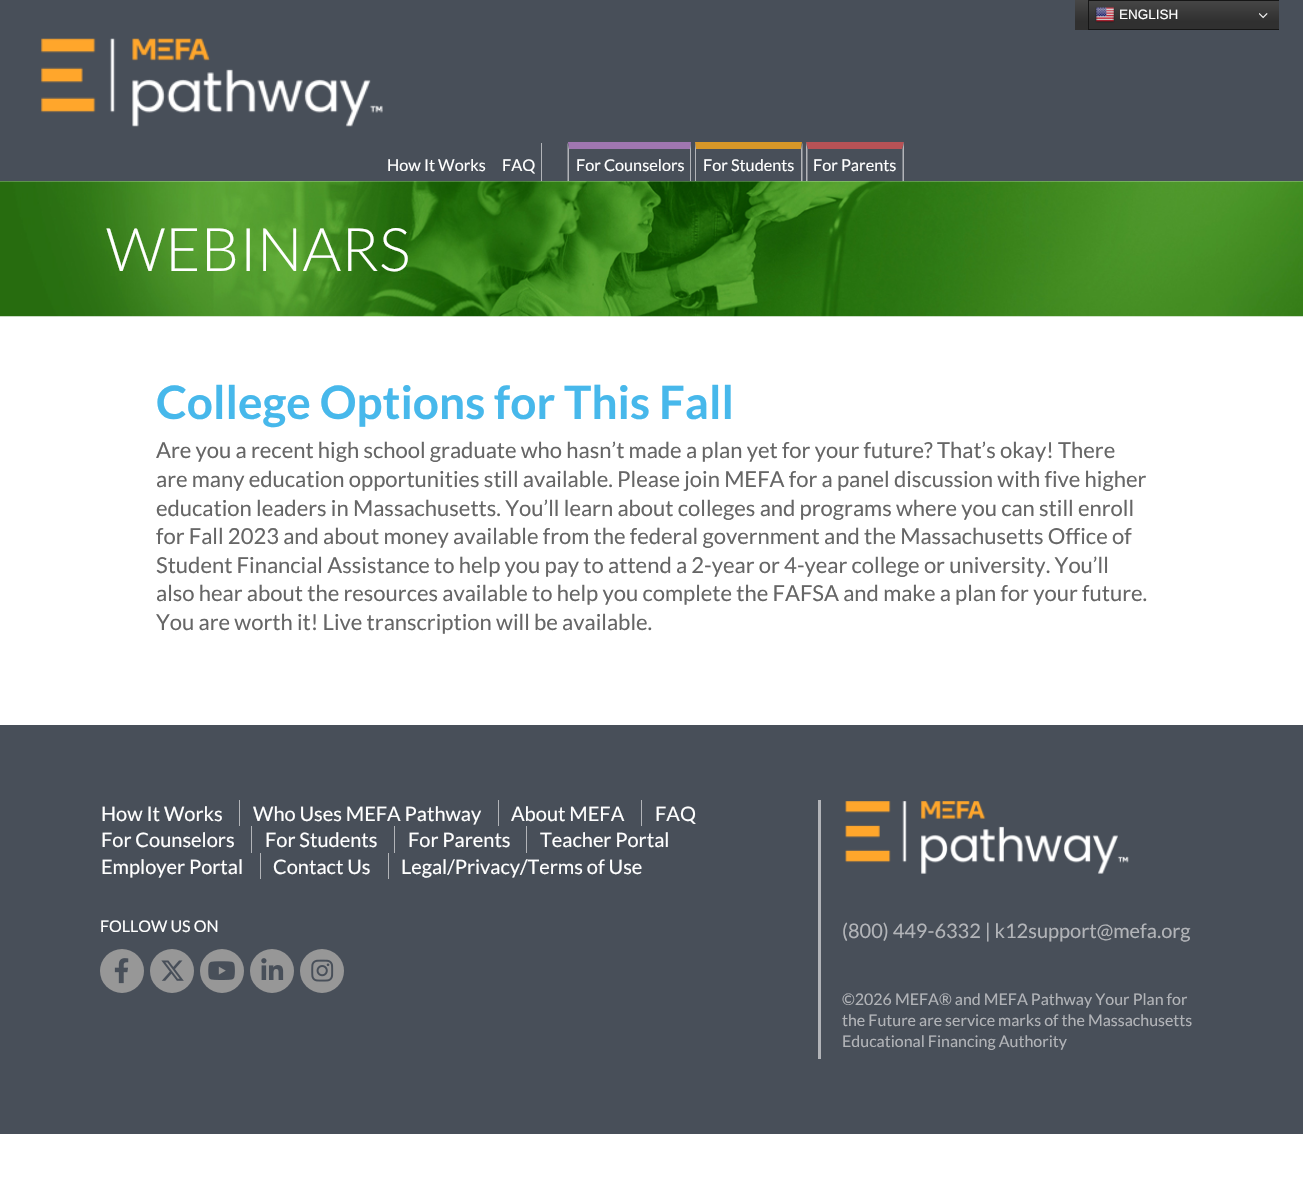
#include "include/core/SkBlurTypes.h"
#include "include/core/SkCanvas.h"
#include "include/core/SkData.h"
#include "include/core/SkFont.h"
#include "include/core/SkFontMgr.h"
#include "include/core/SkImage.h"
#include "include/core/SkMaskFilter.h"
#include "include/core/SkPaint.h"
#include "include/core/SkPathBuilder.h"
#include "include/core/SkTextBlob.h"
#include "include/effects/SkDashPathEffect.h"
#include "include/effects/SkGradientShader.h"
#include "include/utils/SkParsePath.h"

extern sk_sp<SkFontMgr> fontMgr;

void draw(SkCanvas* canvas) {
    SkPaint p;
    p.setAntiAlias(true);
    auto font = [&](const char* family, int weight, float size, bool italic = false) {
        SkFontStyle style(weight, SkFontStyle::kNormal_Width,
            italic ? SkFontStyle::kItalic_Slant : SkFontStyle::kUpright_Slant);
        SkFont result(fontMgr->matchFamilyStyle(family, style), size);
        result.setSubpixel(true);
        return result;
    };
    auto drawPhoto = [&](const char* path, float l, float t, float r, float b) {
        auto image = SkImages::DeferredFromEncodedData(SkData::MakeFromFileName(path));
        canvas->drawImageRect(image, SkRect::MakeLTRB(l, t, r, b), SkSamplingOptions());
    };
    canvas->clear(0xFFFFFFFF);
    p.setColor(0xFF484F59);
    canvas->drawRect(SkRect::MakeLTRB(0, 0, 1303, 181), p);
    {
        const SkColor colors[] = {0xFF474747, 0xFF303030};
        const float stops[] = {0, 0.7f};
        const SkPoint ends[] = {{1177, 0}, {1177, 30}};
        p.setShader(SkGradientShader::MakeLinear(ends, colors, stops, 2, SkTileMode::kClamp));
        p.setAlpha(255);
    }
    canvas->drawRect(SkRect::MakeLTRB(1075, 0, 1279, 30), p);
    canvas->save();
    canvas->clipRect(SkRect::MakeLTRB(1075, 0, 1279, 30));
    p.setStyle(SkPaint::kStroke_Style);
    p.setStrokeWidth(1);
    p.setShader(nullptr);
    p.setColor(0xFF161616);
    canvas->drawRect(SkRect::MakeLTRB(1088.5f, 0.5f, 1290.5f, 29.5f), p);
    canvas->restore();
    drawPhoto("media/1.png", 1095, 7, 1115, 23);
    auto font1 = font("Liberation Sans", 400, 13.5f);
    p.setStyle(SkPaint::kFill_Style);
    p.setColor(0xFFFFFFFF);
    canvas->drawString("ENGLISH", 1119, 19, font1, p);
    drawPhoto("media/2.png", 1259, 13, 1268, 19);
    drawPhoto("media/3.png", 41, 38, 383, 127);
    auto font2 = font("Lato", 400, 16.25f);
    canvas->drawString("How It Works", 387, 171, font2, p);
    canvas->drawString("FAQ", 502, 171, font2, p);
    p.setColor(0xFFB2B4B8);
    canvas->drawRect(SkRect::MakeLTRB(541, 143, 542, 181), p);
    p.setColor(0xFFA076B1);
    canvas->drawPath(SkPathBuilder().moveTo(568, 142).lineTo(691, 142).lineTo(690, 149).lineTo(569, 149).close().detach(), p);
    p.setColor(0xFFB2B4B8);
    canvas->drawPath(SkPathBuilder().moveTo(691, 142.5f).lineTo(691, 181).lineTo(690, 181).lineTo(690, 149).close().detach(), p);
    canvas->drawPath(SkPathBuilder().moveTo(567.5f, 181).lineTo(567.5f, 142.5f).lineTo(569, 149).lineTo(569, 181).close().detach(), p);
    p.setColor(0xFFFFFFFF);
    canvas->drawString("For Counselors", 576, 171, font2, p);
    p.setColor(0xFFD89728);
    canvas->drawPath(SkPathBuilder().moveTo(695, 142).lineTo(802, 142).lineTo(801, 149).lineTo(696, 149).close().detach(), p);
    p.setColor(0xFFB2B4B8);
    canvas->drawPath(SkPathBuilder().moveTo(802.5f, 142.5f).lineTo(802.5f, 181).lineTo(801, 181).lineTo(801, 149).close().detach(), p);
    canvas->drawPath(SkPathBuilder().moveTo(695, 181).lineTo(695, 142.5f).lineTo(696, 149).lineTo(696, 181).close().detach(), p);
    p.setColor(0xFFFFFFFF);
    canvas->drawString("For Students", 703, 171, font2, p);
    p.setColor(0xFFB85256);
    canvas->drawPath(SkPathBuilder().moveTo(806, 142).lineTo(904, 142).lineTo(902, 149).lineTo(808, 149).close().detach(), p);
    p.setColor(0xFFB2B4B8);
    canvas->drawPath(SkPathBuilder().moveTo(904, 142.5f).lineTo(904, 181).lineTo(902.5f, 181).lineTo(902.5f, 149).close().detach(), p);
    canvas->drawPath(SkPathBuilder().moveTo(806, 181).lineTo(806, 142.5f).lineTo(807.5f, 149).lineTo(807.5f, 181).close().detach(), p);
    p.setColor(0xFFFFFFFF);
    canvas->drawString("For Parents", 813, 171, font2, p);
    drawPhoto("media/4.png", 0, 181, 1303, 317);
    auto font3 = font("Lato", 300, 60);
    canvas->drawString("WEBINARS", 106, 271, font3, p);
    auto font4 = font("Lato", 700, 46);
    p.setColor(0xFF47B8EB);
    canvas->drawString("College Options for This Fall", 156, 419, font4, p);
    auto font5 = font("Lato", 400, 22);
    p.setColor(0xFF666666);
    {
        const struct { const char* s; float x, y; } items[] = {
            {"Are you a recent high school graduate who hasn’t made a plan yet for your future? That’s okay! There", 156, 458},
            {"are many education opportunities still available. Please join MEFA for a panel discussion with five higher", 156, 487},
            {"education leaders in Massachusetts. You’ll learn about colleges and programs where you can still enroll", 156, 516},
            {"for Fall 2023 and about money available from the federal government and the Massachusetts Office of", 156, 544},
            {"Student Financial Assistance to help you pay to attend a 2-year or 4-year college or university. You’ll", 156, 573},
            {"also hear about the resources available to help you complete the FAFSA and make a plan for your future.", 156, 601},
            {"You are worth it! Live transcription will be available.", 156, 630},
        };
        for (auto [s, x, y] : items) {
            canvas->drawString(s, x, y, font5, p);
        }
    }
    p.setColor(0xFF484F59);
    canvas->drawRect(SkRect::MakeLTRB(0, 725, 1303, 1134), p);
    auto font6 = font("Lato", 400, 20);
    p.setColor(0xFFFFFFFF);
    canvas->drawString("How It Works", 101, 821, font6, p);
    p.setColor(0xFFB2B4B8);
    canvas->drawRect(SkRect::MakeLTRB(239, 800, 240, 826), p);
    p.setColor(0xFFFFFFFF);
    canvas->drawString("Who Uses MEFA Pathway", 253, 821, font6, p);
    p.setColor(0xFFB2B4B8);
    canvas->drawRect(SkRect::MakeLTRB(498, 800, 499, 826), p);
    p.setColor(0xFFFFFFFF);
    canvas->drawString("About MEFA", 511, 821, font6, p);
    p.setColor(0xFFB2B4B8);
    canvas->drawRect(SkRect::MakeLTRB(641, 800, 642, 826), p);
    p.setColor(0xFFFFFFFF);
    canvas->drawString("FAQ", 655, 821, font6, p);
    canvas->drawString("For Counselors", 101, 847, font6, p);
    p.setColor(0xFFB2B4B8);
    canvas->drawRect(SkRect::MakeLTRB(251, 826, 252, 853), p);
    p.setColor(0xFFFFFFFF);
    canvas->drawString("For Students", 265, 847, font6, p);
    p.setColor(0xFFB2B4B8);
    canvas->drawRect(SkRect::MakeLTRB(394, 826, 395, 853), p);
    p.setColor(0xFFFFFFFF);
    canvas->drawString("For Parents", 408, 847, font6, p);
    p.setColor(0xFFB2B4B8);
    canvas->drawRect(SkRect::MakeLTRB(526, 826, 527, 853), p);
    p.setColor(0xFFFFFFFF);
    canvas->drawString("Teacher Portal", 540, 847, font6, p);
    canvas->drawString("Employer Portal", 101, 874, font6, p);
    p.setColor(0xFFB2B4B8);
    canvas->drawRect(SkRect::MakeLTRB(260, 853, 261, 879), p);
    p.setColor(0xFFFFFFFF);
    canvas->drawString("Contact Us", 273, 874, font6, p);
    p.setColor(0xFFB2B4B8);
    canvas->drawRect(SkRect::MakeLTRB(388, 853, 389, 879), p);
    p.setColor(0xFFFFFFFF);
    canvas->drawString("Legal/Privacy/Terms of Use", 401, 874, font6, p);
    auto font7 = font("Lato", 400, 16);
    canvas->drawString("FOLLOW US ON", 100, 932, font7, p);
    p.setColor(0xFF979797);
    canvas->drawCircle(122, 971, 22, p);
    drawPhoto("media/5.png", 114, 958, 129, 984);
    canvas->drawCircle(172, 971, 22, p);
    drawPhoto("media/6.png", 161, 960, 184, 981);
    canvas->drawCircle(222, 971, 22, p);
    drawPhoto("media/7.png", 208, 961, 235, 980);
    canvas->drawCircle(272, 971, 22, p);
    drawPhoto("media/8.png", 261, 958, 284, 980);
    canvas->drawCircle(322, 971, 22, p);
    drawPhoto("media/9.png", 311, 959, 334, 982);
    p.setColor(0xFFB2B4B8);
    canvas->drawRect(SkRect::MakeLTRB(818, 800, 821, 1059), p);
    drawPhoto("media/10.png", 845, 801, 1129, 874);
    canvas->drawString("(800) 449-6332 | k12support@mefa.org", 842, 938, font6, p);
    {
        const struct { const char* s; float x, y; } items[] = {
            {"©2026 MEFA® and MEFA Pathway Your Plan for", 842, 1005},
            {"the Future are service marks of the Massachusetts", 842, 1026},
            {"Educational Financing Authority", 842, 1047},
        };
        for (auto [s, x, y] : items) {
            canvas->drawString(s, x, y, font7, p);
        }
    }
}
